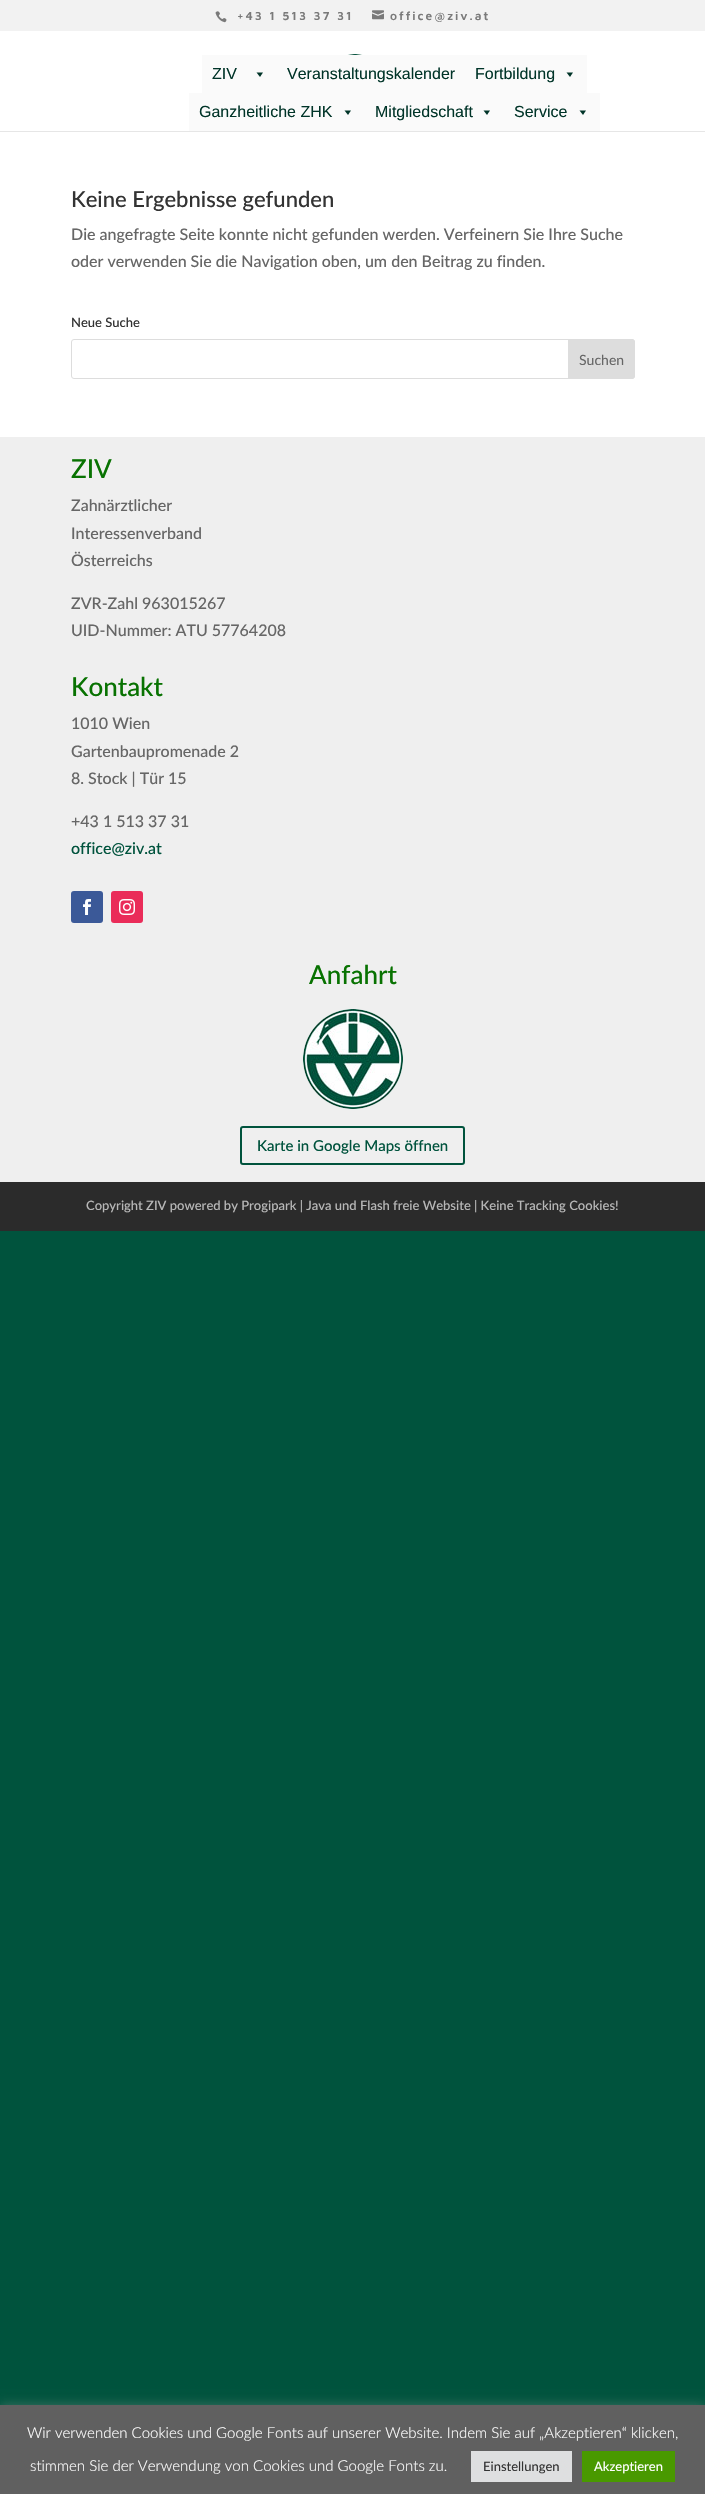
#include "include/core/SkBlurTypes.h"
#include "include/core/SkCanvas.h"
#include "include/core/SkData.h"
#include "include/core/SkFont.h"
#include "include/core/SkFontMgr.h"
#include "include/core/SkImage.h"
#include "include/core/SkMaskFilter.h"
#include "include/core/SkPaint.h"
#include "include/core/SkPathBuilder.h"
#include "include/core/SkTextBlob.h"
#include "include/effects/SkDashPathEffect.h"
#include "include/effects/SkGradientShader.h"
#include "include/utils/SkParsePath.h"

extern sk_sp<SkFontMgr> fontMgr;

void draw(SkCanvas* canvas) {
    SkPaint p;
    p.setAntiAlias(true);
    auto font = [&](const char* family, int weight, float size, bool italic = false) {
        SkFontStyle style(weight, SkFontStyle::kNormal_Width,
            italic ? SkFontStyle::kItalic_Slant : SkFontStyle::kUpright_Slant);
        SkFont result(fontMgr->matchFamilyStyle(family, style), size);
        result.setSubpixel(true);
        return result;
    };
    auto drawTracked = [&](const char* s, float x, float y, const SkFont& font, const SkPaint& ink, float letter, float word) {
        std::vector<SkGlyphID> glyphs(font.countText(s, strlen(s), SkTextEncoding::kUTF8));
        std::vector<float> xs(glyphs.size());
        font.textToGlyphs(s, strlen(s), SkTextEncoding::kUTF8, glyphs);
        font.getXPos(glyphs, xs, x);
        float extra = 0;
        for (size_t i = 0; i < glyphs.size(); i++) {
            xs[i] += extra;
            extra += letter + word * (glyphs[i] == font.unicharToGlyph(' '));
        }
        canvas->drawTextBlob(SkTextBlob::MakeFromPosHGlyphs(glyphs, xs, y, font), 0, 0, ink);
    };
    auto drawPhoto = [&](const char* path, float l, float t, float r, float b) {
        auto image = SkImages::DeferredFromEncodedData(SkData::MakeFromFileName(path));
        canvas->drawImageRect(image, SkRect::MakeLTRB(l, t, r, b), SkSamplingOptions());
    };
    canvas->clear(0xFF00533D);
    p.setColor(0xFFF2F2F2);
    canvas->drawRect(SkRect::MakeLTRB(0, 0, 705, 31), p);
    drawPhoto("media/1.png", 215, 11, 227, 23);
    auto font1 = font("Maven Pro", 600, 12);
    p.setColor(0xFF7A7A7A);
    drawTracked("+43 1 513 37 31", 237, 20, font1, p, 2, 0);
    drawPhoto("media/2.png", 372, 10, 384, 20);
    drawTracked("office@ziv.at", 390, 20, font1, p, 2, 0);
    p.setColor(0xFFE6E6E6);
    canvas->drawRect(SkRect::MakeLTRB(0, 131, 705, 132), p);
    p.setColor(0xFFFFFFFF);
    canvas->drawRect(SkRect::MakeLTRB(0, 31, 705, 131), p);
    drawPhoto("media/3.png", 347, 54, 363, 55);
    p.setColor(0xFFFAFAFA);
    canvas->drawRect(SkRect::MakeLTRB(202, 55, 587, 93), p);
    auto font2 = font("Liberation Sans", 400, 16);
    p.setColor(0xFF003428);
    canvas->drawString("ZIV", 212, 79, font2, p);
    canvas->drawPath(SkPathBuilder().moveTo(263, 72.5f).lineTo(260, 77).lineTo(256.5f, 72.5f).close().detach(), p);
    canvas->drawString("Veranstaltungskalender", 287, 79, font2, p);
    canvas->drawString("Fortbildung", 475, 79, font2, p);
    canvas->drawPath(SkPathBuilder().moveTo(573, 72.5f).lineTo(570, 77).lineTo(566.5f, 72.5f).close().detach(), p);
    p.setColor(0xFFFAFAFA);
    canvas->drawRect(SkRect::MakeLTRB(189, 93, 600, 131), p);
    p.setColor(0xFF003428);
    canvas->drawString("Ganzheitliche ZHK", 199, 117, font2, p);
    canvas->drawPath(SkPathBuilder().moveTo(351, 110.5f).lineTo(348, 115).lineTo(344.5f, 110.5f).close().detach(), p);
    canvas->drawString("Mitgliedschaft", 375, 117, font2, p);
    canvas->drawPath(SkPathBuilder().moveTo(490, 110.5f).lineTo(487, 115).lineTo(483.5f, 110.5f).close().detach(), p);
    canvas->drawString("Service", 514, 117, font2, p);
    canvas->drawPath(SkPathBuilder().moveTo(586, 110.5f).lineTo(583, 115).lineTo(579.5f, 110.5f).close().detach(), p);
    p.setColor(0xFFFFFFFF);
    canvas->drawRect(SkRect::MakeLTRB(0, 132, 705, 437), p);
    auto font3 = font("Lato", 500, 22);
    p.setColor(0xFF333333);
    canvas->drawString("Keine Ergebnisse gefunden", 71, 207, font3, p);
    auto font4 = font("Lato", 500, 16);
    p.setColor(0xFF666666);
    canvas->drawString("Die angefragte Seite konnte nicht gefunden werden. Verfeinern Sie Ihre Suche", 71, 240, font4, p);
    canvas->drawString("oder verwenden Sie die Navigation oben, um den Beitrag zu finden.", 71, 267, font4, p);
    auto font5 = font("Lato", 500, 13);
    p.setColor(0xFF333333);
    canvas->drawString("Neue Suche", 71, 327, font5, p);
    p.setStyle(SkPaint::kStroke_Style);
    p.setStrokeWidth(1);
    p.setColor(0xFFDDDDDD);
    canvas->drawRoundRect(SkRect::MakeLTRB(71.5f, 339.5f, 634.5f, 378.5f), 2.5f, 2.5f, p);
    p.setStyle(SkPaint::kFill_Style);
    canvas->drawPath(SkPathBuilder().moveTo(568.5f, 339.5f).lineTo(632, 339.5f).cubicTo(633.5f, 339.5f, 634.5f, 340.5f, 634.5f, 342).lineTo(634.5f, 376).cubicTo(634.5f, 377.5f, 633.5f, 378.5f, 632, 378.5f).lineTo(568.5f, 378.5f).close().detach(), p);
    p.setStyle(SkPaint::kStroke_Style);
    canvas->drawPath(SkPathBuilder().moveTo(568.5f, 339.5f).lineTo(632, 339.5f).cubicTo(633.5f, 339.5f, 634.5f, 340.5f, 634.5f, 342).lineTo(634.5f, 376).cubicTo(634.5f, 377.5f, 633.5f, 378.5f, 632, 378.5f).lineTo(568.5f, 378.5f).close().detach(), p);
    auto font6 = font("Lato", 400, 14);
    p.setStyle(SkPaint::kFill_Style);
    p.setColor(0xFF666666);
    canvas->drawString("Suchen", 579, 365, font6, p);
    p.setColor(0xFFEFEFEF);
    canvas->drawRect(SkRect::MakeLTRB(0, 437, 705, 1182), p);
    auto font7 = font("Lato", 500, 26);
    p.setColor(0xFF087201);
    canvas->drawString("ZIV", 71, 478, font7, p);
    p.setColor(0xFF666666);
    {
        const struct { const char* s; float x, y; } items[] = {
            {"Zahnärztlicher", 71, 511},
            {"Interessenverband", 71, 539},
            {"Österreichs", 71, 566},
            {"ZVR-Zahl 963015267", 71, 609},
            {"UID-Nummer: ATU 57764208", 71, 636},
        };
        for (auto [s, x, y] : items) {
            canvas->drawString(s, x, y, font4, p);
        }
    }
    p.setColor(0xFF087201);
    canvas->drawString("Kontakt", 71, 696, font7, p);
    p.setColor(0xFF666666);
    {
        const struct { const char* s; float x, y; } items[] = {
            {"1010 Wien", 71, 729},
            {"Gartenbaupromenade 2", 71, 757},
            {"8. Stock | Tür 15", 71, 784},
            {"+43 1 513 37 31", 71, 827},
        };
        for (auto [s, x, y] : items) {
            canvas->drawString(s, x, y, font4, p);
        }
    }
    p.setColor(0xFF00533D);
    canvas->drawString("office@ziv.at", 71, 854, font4, p);
    p.setColor(0xFF3B5998);
    canvas->drawRoundRect(SkRect::MakeLTRB(71, 891, 103, 923), 3, 3, p);
    drawPhoto("media/4.png", 83, 899, 91, 915);
    p.setColor(0xFFEA2C59);
    canvas->drawRoundRect(SkRect::MakeLTRB(111, 891, 143, 923), 3, 3, p);
    drawPhoto("media/5.png", 119, 899, 135, 915);
    p.setColor(0xFF087201);
    canvas->drawString("Anfahrt", 309, 984, font7, p);
    drawPhoto("media/6.png", 303, 1009, 403, 1109);
    p.setStyle(SkPaint::kStroke_Style);
    p.setStrokeWidth(2);
    p.setColor(0xFF00533D);
    canvas->drawRoundRect(SkRect::MakeLTRB(241, 1127, 464, 1164), 2, 2, p);
    auto font8 = font("Lato", 500, 15);
    p.setStyle(SkPaint::kFill_Style);
    canvas->drawString("Karte in Google Maps öffnen", 257, 1151, font8, p);
    p.setColor(0xFF2B2B2B);
    canvas->drawRect(SkRect::MakeLTRB(0, 1182, 705, 1231), p);
    p.setColor(0xFFB7B7B7);
    canvas->drawString("Copyright ZIV powered by Progipark | Java und Flash freie Website | Keine Tracking Cookies!", 86, 1210, font5, p);
    p.setColor(0x4DACABAB);
    p.setMaskFilter(SkMaskFilter::MakeBlur(kNormal_SkBlurStyle, 5));
    canvas->drawRect(SkRect::MakeLTRB(0, 2404, 705, 2493), p);
    p.setMaskFilter(nullptr);
    p.setColor(0xFF606060);
    canvas->drawRect(SkRect::MakeLTRB(0, 2405, 705, 2494), p);
    auto font9 = font("Lato", 300, 15);
    p.setColor(0xFFFFFFFF);
    canvas->drawString("Wir verwenden Cookies und Google Fonts auf unserer Website. Indem Sie auf „Akzeptieren“ klicken,", 27, 2438, font9, p);
    canvas->drawString("stimmen Sie der Verwendung von Cookies und Google Fonts zu.", 30, 2471, font9, p);
    p.setColor(0xFFDEDFE0);
    canvas->drawRect(SkRect::MakeLTRB(471, 2451, 572, 2482), p);
    auto font10 = font("Lato", 400, 13);
    p.setColor(0xFF333333);
    canvas->drawString("Einstellungen", 483, 2471, font10, p);
    p.setColor(0xFF499900);
    canvas->drawRect(SkRect::MakeLTRB(582, 2451, 675, 2482), p);
    p.setColor(0xFFFFFFFF);
    canvas->drawString("Akzeptieren", 594, 2471, font10, p);
}
